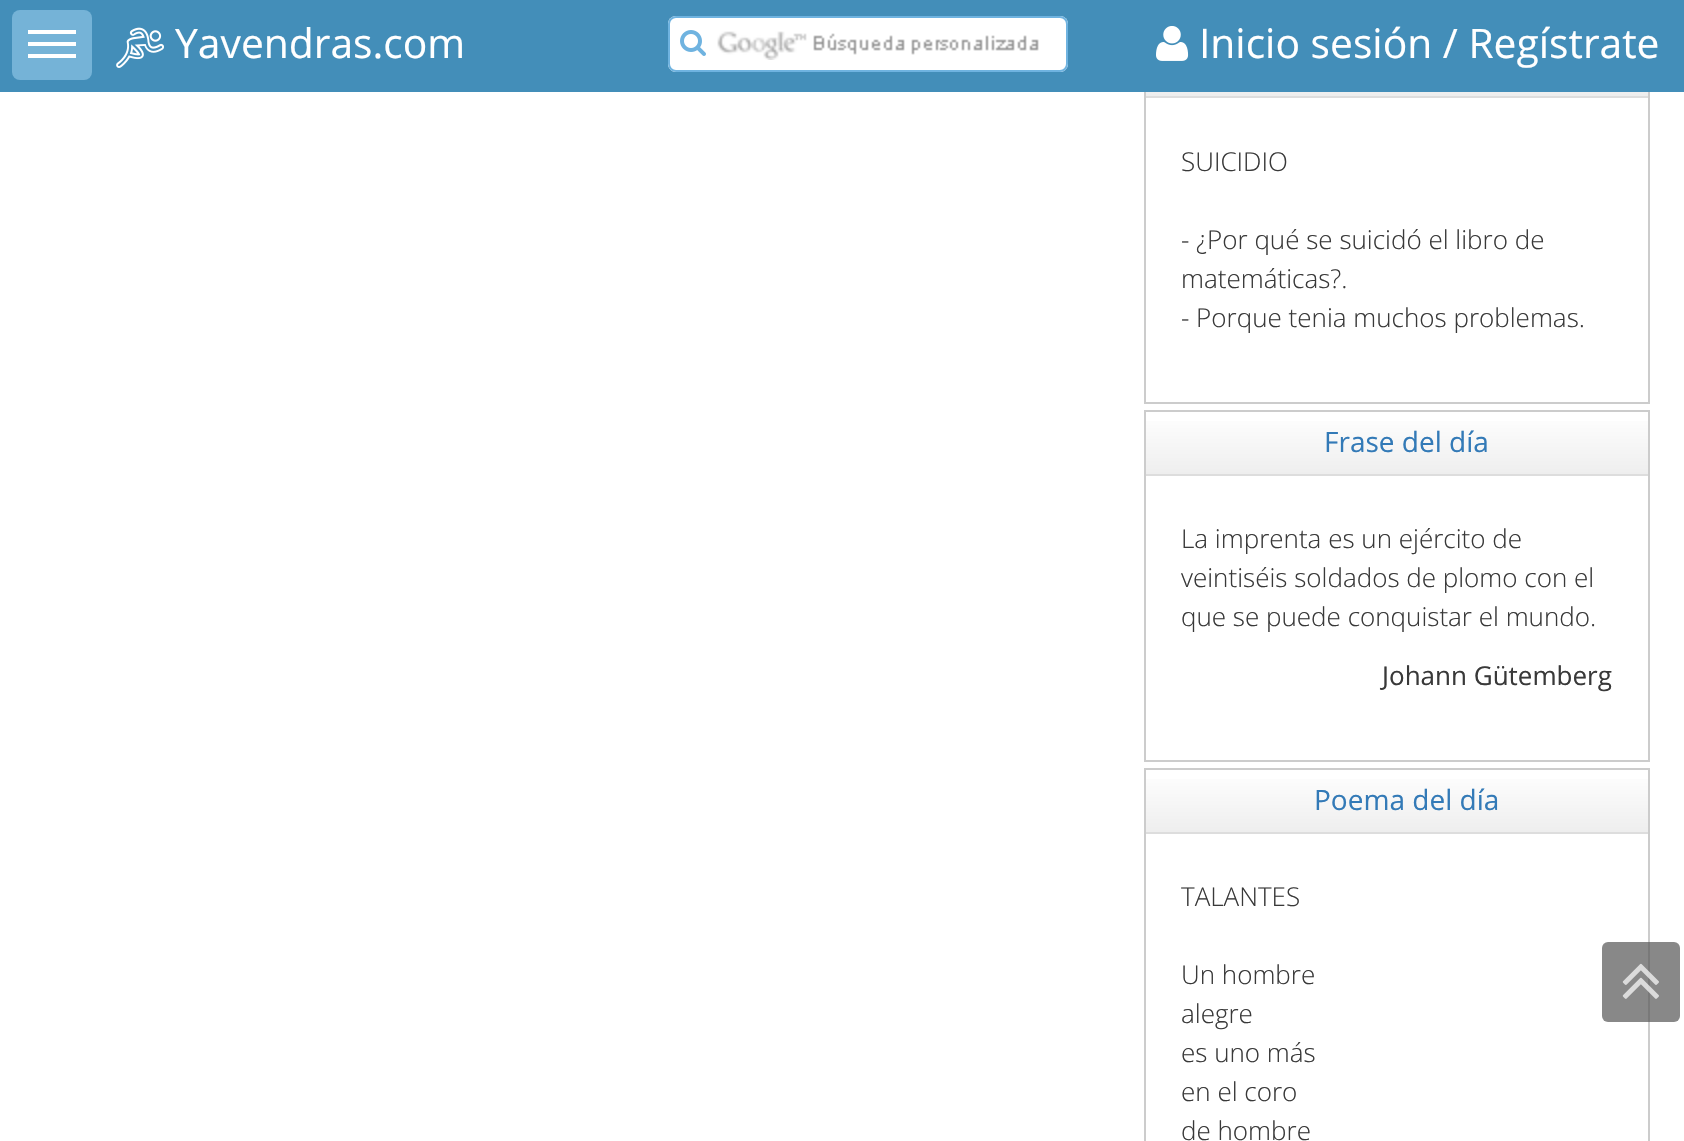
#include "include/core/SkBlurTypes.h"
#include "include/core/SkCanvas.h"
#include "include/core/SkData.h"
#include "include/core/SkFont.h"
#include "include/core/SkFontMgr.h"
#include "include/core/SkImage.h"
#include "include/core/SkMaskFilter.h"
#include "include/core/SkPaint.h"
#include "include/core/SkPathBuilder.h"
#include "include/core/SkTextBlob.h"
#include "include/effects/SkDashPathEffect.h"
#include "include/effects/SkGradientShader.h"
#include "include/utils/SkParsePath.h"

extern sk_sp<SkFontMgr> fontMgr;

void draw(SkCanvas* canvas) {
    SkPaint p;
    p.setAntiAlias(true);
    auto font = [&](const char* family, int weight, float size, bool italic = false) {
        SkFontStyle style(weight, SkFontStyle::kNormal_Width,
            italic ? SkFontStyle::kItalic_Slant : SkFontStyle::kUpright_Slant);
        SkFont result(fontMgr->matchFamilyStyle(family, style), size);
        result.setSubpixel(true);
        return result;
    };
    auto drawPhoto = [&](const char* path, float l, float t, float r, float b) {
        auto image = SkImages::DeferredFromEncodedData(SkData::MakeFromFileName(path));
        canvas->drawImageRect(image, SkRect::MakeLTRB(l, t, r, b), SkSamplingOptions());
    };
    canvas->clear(0xFFFFFFFF);
    p.setStyle(SkPaint::kStroke_Style);
    p.setStrokeWidth(2);
    p.setColor(0xFFCCCCCC);
    canvas->drawRect(SkRect::MakeLTRB(1145, 33, 1649, 403), p);
    p.setStyle(SkPaint::kFill_Style);
    p.setColor(0xFF438EB9);
    canvas->drawRect(SkRect::MakeLTRB(0, 0, 1684, 92), p);
    p.setColor(0xFF75B3D7);
    canvas->drawRoundRect(SkRect::MakeLTRB(12, 10, 92, 80), 8, 8, p);
    {
        const struct { float l, t, r, b; SkColor color; } items[] = {
            {28, 30, 76, 34, 0xFFFFFFFF},
            {28, 42, 76, 46, 0xFFFFFFFF},
            {28, 54, 76, 58, 0xFFFFFFFF},
        };
        for (auto [l, t, r, b, color] : items) {
            p.setColor(color);
            canvas->drawRect(SkRect::MakeLTRB(l, t, r, b), p);
        }
    }
    drawPhoto("media/1.png", 116, 27, 164, 68);
    auto font1 = font("Open Sans", 400, 40.75f);
    canvas->drawString("Yavendras.com", 175, 58, font1, p);
    canvas->drawRoundRect(SkRect::MakeLTRB(668, 16, 1068, 72), 8, 8, p);
    drawPhoto("media/2.png", 717, 31, 1039, 60);
    p.setStyle(SkPaint::kStroke_Style);
    p.setColor(0xFF6FB3E0);
    canvas->drawRoundRect(SkRect::MakeLTRB(669, 17, 1067, 71), 7, 7, p);
    drawPhoto("media/3.png", 680, 30, 706, 56);
    drawPhoto("media/4.png", 1156, 26, 1189, 61);
    p.setStyle(SkPaint::kFill_Style);
    p.setColor(0xFFFFFFFF);
    canvas->drawString("Inicio sesión / Regístrate", 1199, 58, font1, p);
    {
        const SkColor colors[] = {0xFFFFFFFF, 0xFFEEEEEE};
        const float stops[] = {0, 1};
        const SkPoint ends[] = {{1397, 34}, {1397, 96}};
        p.setShader(SkGradientShader::MakeLinear(ends, colors, stops, 2, SkTileMode::kClamp));
        p.setAlpha(255);
    }
    canvas->drawRect(SkRect::MakeLTRB(1146, 92, 1648, 96), p);
    p.setShader(nullptr);
    p.setColor(0xFFDDDDDD);
    canvas->drawRect(SkRect::MakeLTRB(1146, 96, 1648, 98), p);
    auto font2 = font("Open Sans", 300, 26);
    p.setColor(0xFF393939);
    {
        const struct { const char* s; float x, y; } items[] = {
            {"SUICIDIO", 1181, 171},
            {"- ¿Por qué se suicidó el libro de", 1181, 249},
            {"matemáticas?.", 1181, 288},
            {"- Porque tenia muchos problemas.", 1181, 327},
        };
        for (auto [s, x, y] : items) {
            canvas->drawString(s, x, y, font2, p);
        }
    }
    p.setStyle(SkPaint::kStroke_Style);
    p.setColor(0xFFCCCCCC);
    canvas->drawRect(SkRect::MakeLTRB(1145, 411, 1649, 761), p);
    p.setStyle(SkPaint::kFill_Style);
    {
        const SkColor colors[] = {0xFFFFFFFF, 0xFFEEEEEE};
        const float stops[] = {0, 1};
        const SkPoint ends[] = {{1397, 412}, {1397, 474}};
        p.setShader(SkGradientShader::MakeLinear(ends, colors, stops, 2, SkTileMode::kClamp));
        p.setAlpha(255);
    }
    canvas->drawRect(SkRect::MakeLTRB(1146, 421, 1648, 474), p);
    p.setShader(nullptr);
    p.setColor(0xFFDDDDDD);
    canvas->drawRect(SkRect::MakeLTRB(1146, 474, 1648, 476), p);
    auto font3 = font("Open Sans", 400, 28);
    p.setColor(0xFF337AB7);
    canvas->drawString("Frase del día", 1324, 452, font3, p);
    p.setColor(0xFF393939);
    {
        const struct { const char* s; float x, y; } items[] = {
            {"La imprenta es un ejército de", 1181, 548},
            {"veintiséis soldados de plomo con el", 1181, 587},
            {"que se puede conquistar el mundo.", 1181, 626},
        };
        for (auto [s, x, y] : items) {
            canvas->drawString(s, x, y, font2, p);
        }
    }
    auto font4 = font("Open Sans", 400, 26);
    canvas->drawString("Johann Gütemberg", 1382, 685, font4, p);
    p.setStyle(SkPaint::kStroke_Style);
    p.setColor(0xFFCCCCCC);
    canvas->drawRect(SkRect::MakeLTRB(1145, 769, 1649, 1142), p);
    p.setStyle(SkPaint::kFill_Style);
    {
        const SkColor colors[] = {0xFFFFFFFF, 0xFFEEEEEE};
        const float stops[] = {0, 1};
        const SkPoint ends[] = {{1397, 770}, {1397, 832}};
        p.setShader(SkGradientShader::MakeLinear(ends, colors, stops, 2, SkTileMode::kClamp));
        p.setAlpha(255);
    }
    canvas->drawRect(SkRect::MakeLTRB(1146, 779, 1648, 832), p);
    p.setShader(nullptr);
    p.setColor(0xFFDDDDDD);
    canvas->drawRect(SkRect::MakeLTRB(1146, 832, 1648, 834), p);
    p.setColor(0xFF337AB7);
    canvas->drawString("Poema del día", 1314, 810, font3, p);
    p.setColor(0xFF393939);
    {
        const struct { const char* s; float x, y; } items[] = {
            {"TALANTES", 1181, 906},
            {"Un hombre", 1181, 984},
            {"alegre", 1181, 1023},
            {"es uno más", 1181, 1062},
            {"en el coro", 1181, 1101},
            {"de hombre", 1181, 1140},
        };
        for (auto [s, x, y] : items) {
            canvas->drawString(s, x, y, font2, p);
        }
    }
    p.setColor(0xB3555555);
    canvas->drawRoundRect(SkRect::MakeLTRB(1602, 942, 1680, 1022), 6, 6, p);
    drawPhoto("media/5.png", 1622, 963, 1659, 999);
}
